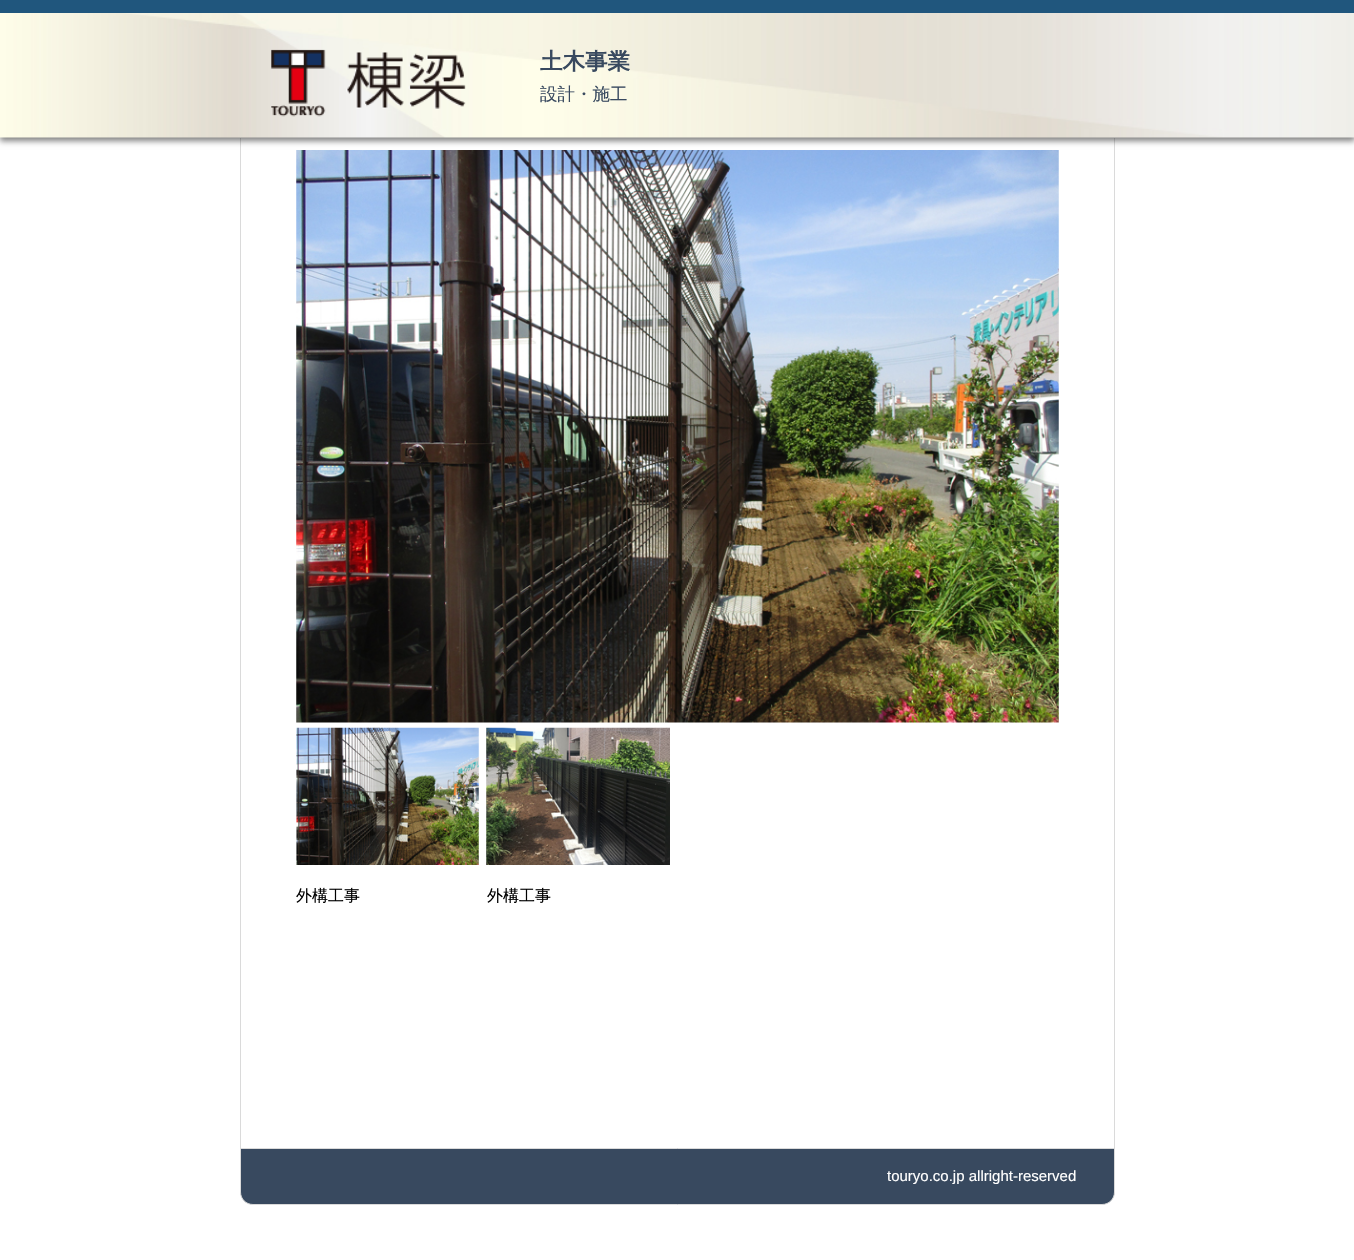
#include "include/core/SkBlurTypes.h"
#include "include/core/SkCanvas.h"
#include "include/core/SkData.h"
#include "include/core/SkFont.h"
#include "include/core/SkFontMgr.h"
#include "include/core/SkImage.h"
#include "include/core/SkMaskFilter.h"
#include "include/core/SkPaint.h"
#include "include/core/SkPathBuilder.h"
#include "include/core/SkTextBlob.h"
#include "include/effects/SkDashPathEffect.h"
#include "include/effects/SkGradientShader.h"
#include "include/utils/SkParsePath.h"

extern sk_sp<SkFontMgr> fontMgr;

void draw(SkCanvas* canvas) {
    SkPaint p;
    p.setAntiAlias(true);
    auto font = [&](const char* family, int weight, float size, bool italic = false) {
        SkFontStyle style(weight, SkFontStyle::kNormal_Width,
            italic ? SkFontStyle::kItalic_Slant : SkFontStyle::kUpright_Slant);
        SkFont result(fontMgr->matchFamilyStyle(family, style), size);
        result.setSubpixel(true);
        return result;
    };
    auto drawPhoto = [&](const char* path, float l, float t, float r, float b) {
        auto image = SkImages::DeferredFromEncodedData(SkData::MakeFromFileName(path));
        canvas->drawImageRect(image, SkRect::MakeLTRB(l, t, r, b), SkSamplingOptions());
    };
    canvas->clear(0xFFFFFFFF);
    p.setColor(0xFFDADADA);
    canvas->drawRect(SkRect::MakeLTRB(1114, 138, 1115, 1148), p);
    canvas->drawRect(SkRect::MakeLTRB(240, 138, 241, 1148), p);
    drawPhoto("media/3.png", 296, 150, 1059, 723);
    p.setColor(0x80000000);
    p.setMaskFilter(SkMaskFilter::MakeBlur(kNormal_SkBlurStyle, 3));
    canvas->drawRect(SkRect::MakeLTRB(0, 4, 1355, 141), p);
    p.setMaskFilter(nullptr);
    drawPhoto("media/1.png", 0, 13, 1354, 138);
    p.setColor(0xFF20567D);
    canvas->drawRect(SkRect::MakeLTRB(0, 0, 1354, 13), p);
    drawPhoto("media/2.png", 271, 49, 466, 117);
    auto font1 = font("WenQuanYi Zen Hei", 700, 22.5f);
    p.setColor(0xFF38495F);
    canvas->drawString("土木事業", 540, 69, font1, p);
    auto font2 = font("WenQuanYi Zen Hei", 500, 17.5f);
    canvas->drawString("設計・施工", 540, 100, font2, p);
    drawPhoto("media/4.png", 296, 727, 479, 865);
    auto font3 = font("WenQuanYi Zen Hei", 500, 16);
    p.setColor(0xFF000000);
    canvas->drawString("外構工事", 296, 901, font3, p);
    drawPhoto("media/5.png", 486, 727, 670, 865);
    canvas->drawString("外構工事", 487, 901, font3, p);
    p.setColor(0xFF38495F);
    canvas->drawPath(SkPathBuilder().moveTo(240.5f, 1148.5f).lineTo(1114.5f, 1148.5f).lineTo(1114.5f, 1192).cubicTo(1114.5f, 1199, 1109, 1204.5f, 1102, 1204.5f).lineTo(253, 1204.5f).cubicTo(246, 1204.5f, 240.5f, 1199, 240.5f, 1192).close().detach(), p);
    p.setStyle(SkPaint::kStroke_Style);
    p.setStrokeWidth(1);
    p.setColor(0xFFDADADA);
    canvas->drawPath(SkPathBuilder().moveTo(240.5f, 1148.5f).lineTo(1114.5f, 1148.5f).lineTo(1114.5f, 1192).cubicTo(1114.5f, 1199, 1109, 1204.5f, 1102, 1204.5f).lineTo(253, 1204.5f).cubicTo(246, 1204.5f, 240.5f, 1199, 240.5f, 1192).close().detach(), p);
    auto font4 = font("Liberation Sans", 400, 15);
    p.setStyle(SkPaint::kFill_Style);
    p.setColor(0xFFFFFFFF);
    canvas->drawString("touryo.co.jp allright-reserved", 887, 1181, font4, p);
}
